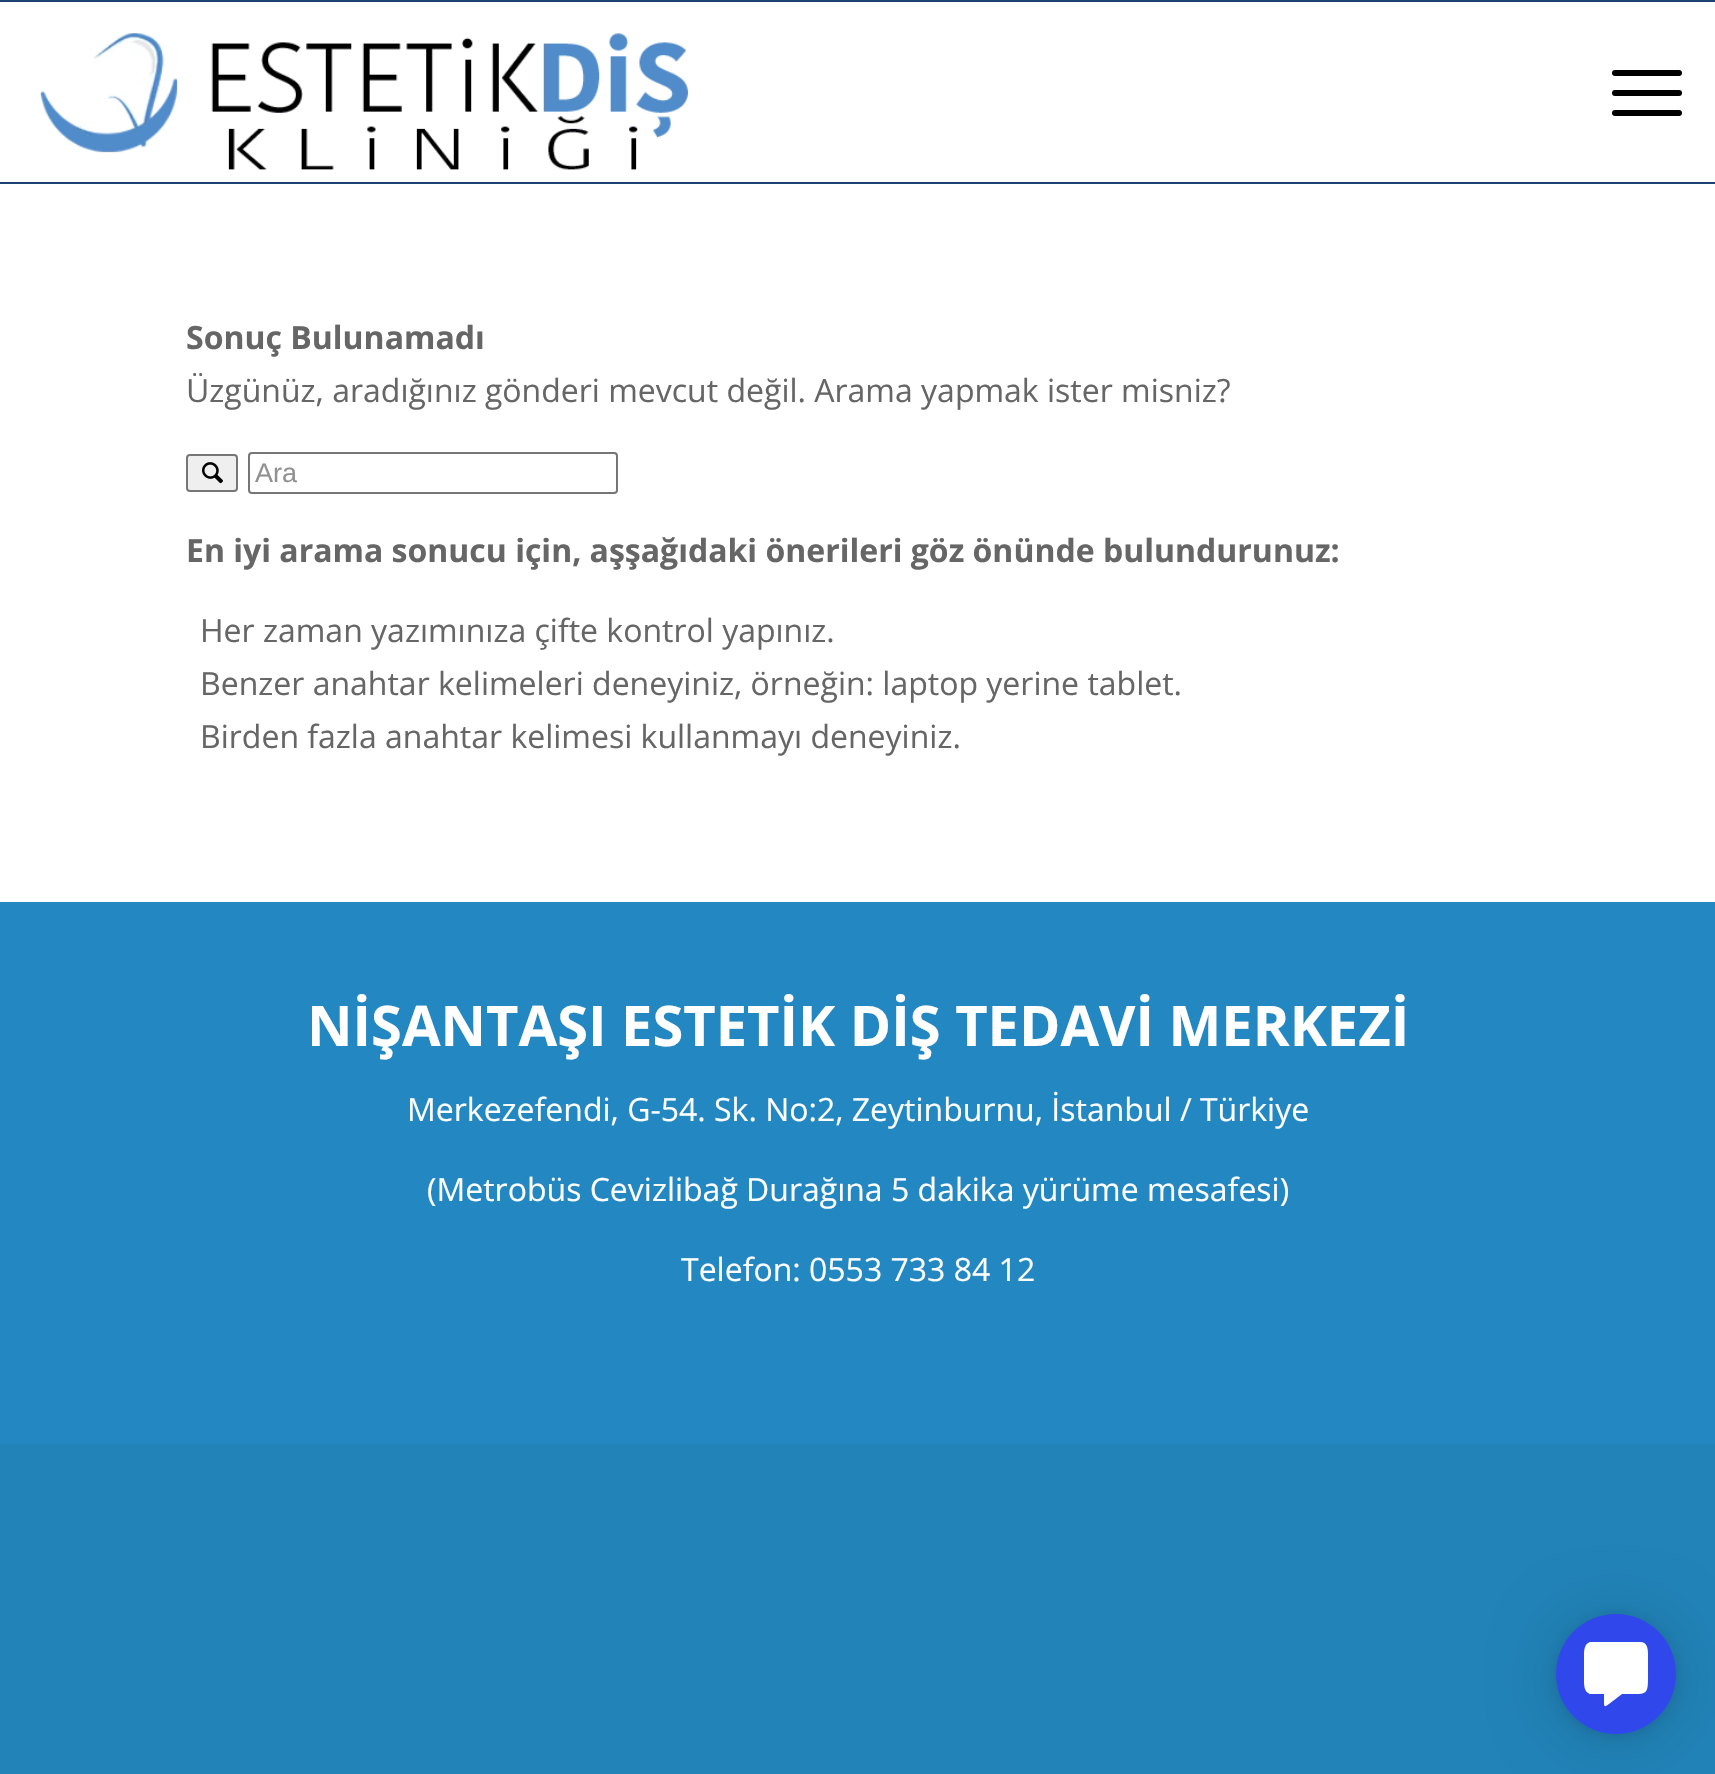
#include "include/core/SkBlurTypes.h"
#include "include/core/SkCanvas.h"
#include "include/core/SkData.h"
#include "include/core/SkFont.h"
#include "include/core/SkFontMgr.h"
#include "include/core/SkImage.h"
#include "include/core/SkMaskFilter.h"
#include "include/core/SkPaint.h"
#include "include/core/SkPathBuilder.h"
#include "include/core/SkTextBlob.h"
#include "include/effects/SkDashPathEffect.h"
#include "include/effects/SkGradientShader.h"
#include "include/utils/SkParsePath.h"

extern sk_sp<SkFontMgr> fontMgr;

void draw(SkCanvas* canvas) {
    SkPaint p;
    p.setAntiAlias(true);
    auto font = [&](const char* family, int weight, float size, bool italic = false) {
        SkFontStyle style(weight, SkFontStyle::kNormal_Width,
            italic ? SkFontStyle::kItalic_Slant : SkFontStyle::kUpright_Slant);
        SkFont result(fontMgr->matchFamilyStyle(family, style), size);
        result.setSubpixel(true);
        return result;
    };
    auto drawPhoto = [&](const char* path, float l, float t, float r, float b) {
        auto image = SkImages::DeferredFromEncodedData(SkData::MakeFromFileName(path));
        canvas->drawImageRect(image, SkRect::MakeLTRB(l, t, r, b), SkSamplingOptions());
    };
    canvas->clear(0xFF2183B8);
    {
        const struct { float l, t, r, b; SkColor color; } items[] = {
            {0, 0, 1715, 2, 0xFF1D4374},
            {0, 182, 1715, 184, 0xFF1D4374},
            {0, 2, 1715, 182, 0xFFFFFFFF},
        };
        for (auto [l, t, r, b, color] : items) {
            p.setColor(color);
            canvas->drawRect(SkRect::MakeLTRB(l, t, r, b), p);
        }
    }
    drawPhoto("media/1.png", 40, 33, 689, 170);
    p.setColor(0xFF000000);
    canvas->drawRoundRect(SkRect::MakeLTRB(1612, 90, 1682, 96), 3, 3, p);
    canvas->drawRoundRect(SkRect::MakeLTRB(1612, 70, 1682, 76), 3, 3, p);
    canvas->drawRoundRect(SkRect::MakeLTRB(1612, 110, 1682, 116), 3, 3, p);
    p.setColor(0xFFFFFFFF);
    canvas->drawRect(SkRect::MakeLTRB(0, 184, 1715, 902), p);
    auto font1 = font("Open Sans", 700, 32);
    p.setColor(0xFF666666);
    canvas->drawString("Sonuç Bulunamadı", 186, 349, font1, p);
    auto font2 = font("Open Sans", 400, 32);
    canvas->drawString("Üzgünüz, aradığınız gönderi mevcut değil. Arama yapmak ister misniz?", 186, 402, font2, p);
    p.setColor(0xFFEFEFEF);
    canvas->drawRoundRect(SkRect::MakeLTRB(187, 455, 237, 491), 3, 3, p);
    p.setStyle(SkPaint::kStroke_Style);
    p.setStrokeWidth(2);
    p.setColor(0xFF767676);
    canvas->drawRoundRect(SkRect::MakeLTRB(187, 455, 237, 491), 3, 3, p);
    drawPhoto("media/2.png", 202, 462, 223, 484);
    canvas->drawRoundRect(SkRect::MakeLTRB(249, 453, 617, 493), 3, 3, p);
    auto font3 = font("Liberation Sans", 400, 27);
    p.setStyle(SkPaint::kFill_Style);
    p.setColor(0xFF919191);
    canvas->drawString("Ara", 255, 482, font3, p);
    p.setColor(0xFF666666);
    canvas->drawString("En iyi arama sonucu için, aşşağıdaki önerileri göz önünde bulundurunuz:", 186, 562, font1, p);
    {
        const struct { const char* s; float x, y; } items[] = {
            {"Her zaman yazımınıza çifte kontrol yapınız.", 200, 642},
            {"Benzer anahtar kelimeleri deneyiniz, örneğin: laptop yerine tablet.", 200, 695},
            {"Birden fazla anahtar kelimesi kullanmayı deneyiniz.", 200, 748},
        };
        for (auto [s, x, y] : items) {
            canvas->drawString(s, x, y, font2, p);
        }
    }
    p.setColor(0xFF2388C2);
    canvas->drawRect(SkRect::MakeLTRB(0, 902, 1715, 1444), p);
    auto font4 = font("Open Sans", 700, 56);
    p.setColor(0xFFFFFFFF);
    canvas->drawString("NİŞANTAŞI ESTETİK DİŞ TEDAVİ MERKEZİ", 307, 1046, font4, p);
    {
        const struct { const char* s; float x, y; } items[] = {
            {"Merkezefendi, G-54. Sk. No:2, Zeytinburnu, İstanbul / Türkiye", 407, 1121},
            {"(Metrobüs Cevizlibağ Durağına 5 dakika yürüme mesafesi)", 427, 1201},
            {"Telefon: 0553 733 84 12", 681, 1281},
        };
        for (auto [s, x, y] : items) {
            canvas->drawString(s, x, y, font2, p);
        }
    }
    p.setColor(0x29000000);
    p.setMaskFilter(SkMaskFilter::MakeBlur(kNormal_SkBlurStyle, 32));
    canvas->drawRoundRect(SkRect::MakeLTRB(1556, 1618, 1676, 1738), 60, 60, p);
    p.setMaskFilter(nullptr);
    p.setColor(0x1A000000);
    p.setMaskFilter(SkMaskFilter::MakeBlur(kNormal_SkBlurStyle, 6));
    canvas->drawRoundRect(SkRect::MakeLTRB(1556, 1616, 1676, 1736), 60, 60, p);
    p.setMaskFilter(nullptr);
    p.setColor(0xFF3047EC);
    canvas->drawCircle(1616, 1674, 60, p);
    p.setColor(0xFFFFFFFF);
    canvas->drawPath(SkPathBuilder().moveTo(1640, 1642).cubicTo(1648, 1642, 1648, 1650, 1648, 1656).lineTo(1648, 1668).cubicTo(1648, 1697, 1650, 1694, 1622, 1694).lineTo(1609, 1704).cubicTo(1606, 1706, 1604, 1708, 1604, 1703).lineTo(1604, 1694).lineTo(1590, 1694).cubicTo(1584, 1692, 1584, 1685, 1584, 1680).lineTo(1584, 1656).cubicTo(1584, 1651, 1584, 1644, 1590, 1642).close().detach(), p);
}
